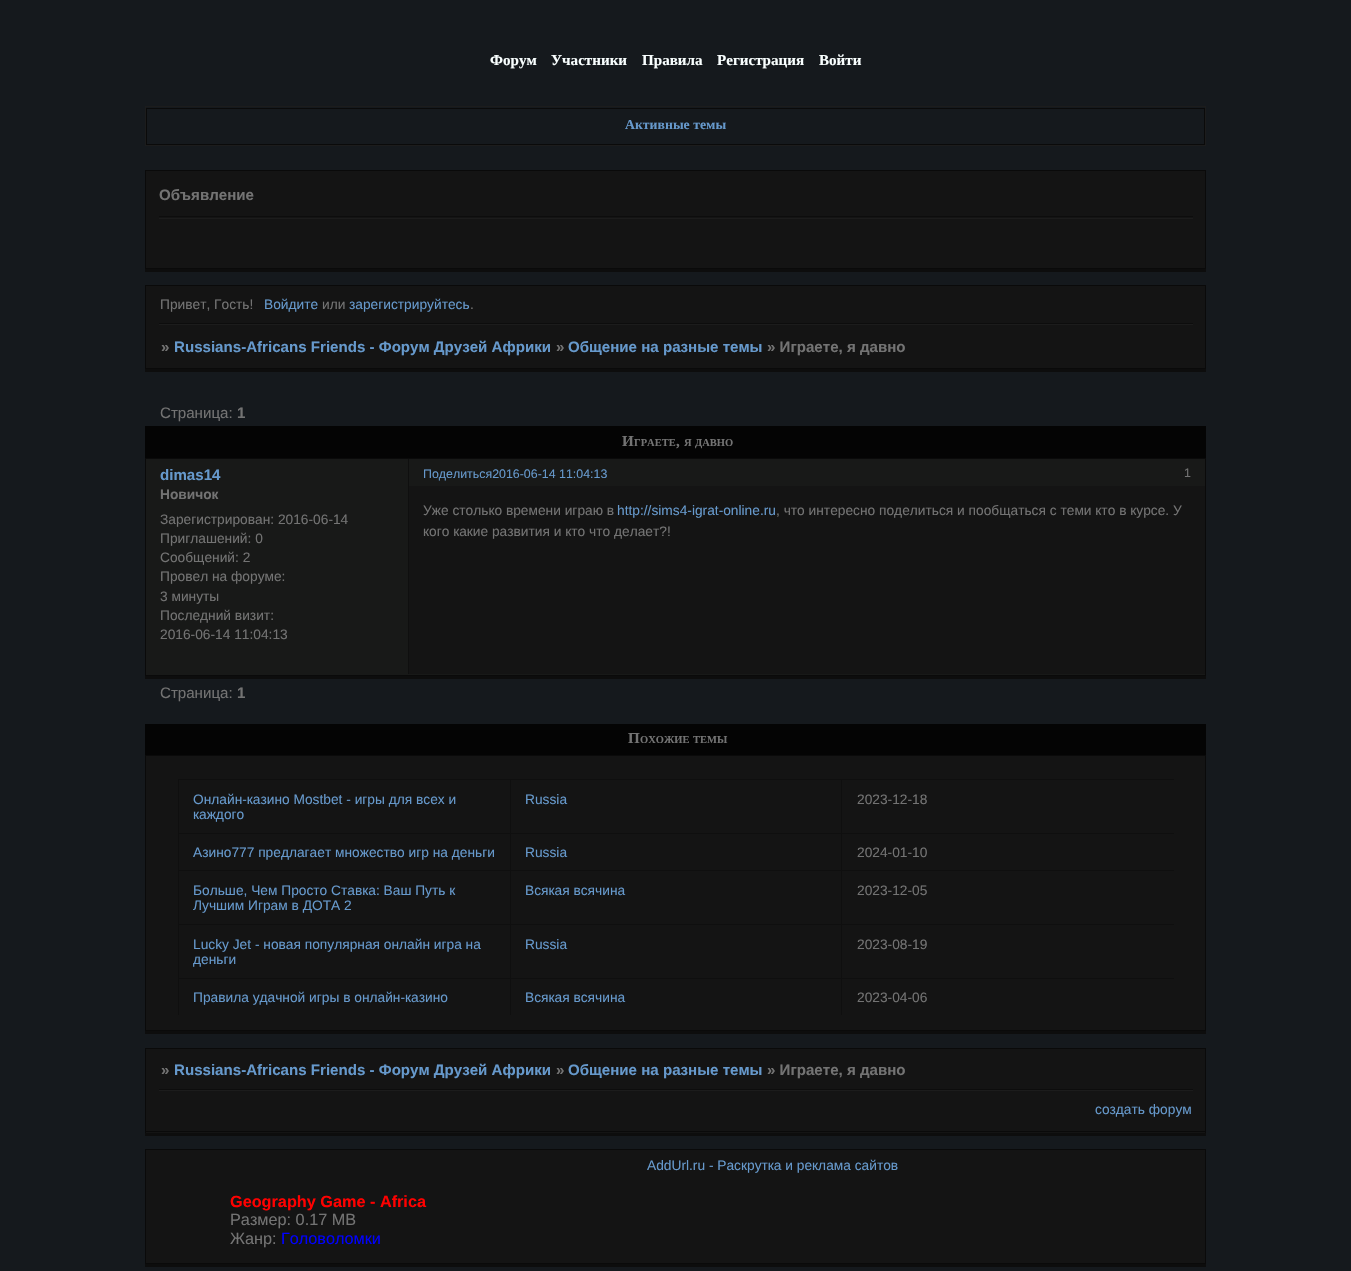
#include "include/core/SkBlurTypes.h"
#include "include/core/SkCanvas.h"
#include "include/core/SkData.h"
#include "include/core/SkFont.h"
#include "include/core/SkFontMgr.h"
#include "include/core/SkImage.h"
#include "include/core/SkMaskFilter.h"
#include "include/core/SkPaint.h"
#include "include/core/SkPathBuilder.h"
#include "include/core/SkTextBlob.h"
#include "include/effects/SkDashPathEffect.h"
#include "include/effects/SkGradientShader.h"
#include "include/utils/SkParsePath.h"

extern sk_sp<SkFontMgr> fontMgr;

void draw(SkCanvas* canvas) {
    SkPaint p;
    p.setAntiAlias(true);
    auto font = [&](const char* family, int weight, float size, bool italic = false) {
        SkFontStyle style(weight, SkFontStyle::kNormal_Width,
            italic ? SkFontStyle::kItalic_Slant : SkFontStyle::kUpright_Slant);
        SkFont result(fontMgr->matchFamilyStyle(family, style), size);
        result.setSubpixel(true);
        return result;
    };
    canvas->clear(0xFF15191D);
    auto font1 = font("Liberation Serif", 700, 15.1f);
    p.setColor(0xFFF9FFFF);
    {
        const struct { const char* s; float x, y; } items[] = {
            {"Форум", 490, 65},
            {"Участники", 551, 65},
            {"Правила", 642, 65},
            {"Регистрация", 717, 65},
            {"Войти", 819, 65},
        };
        for (auto [s, x, y] : items) {
            canvas->drawString(s, x, y, font1, p);
        }
    }
    p.setStyle(SkPaint::kStroke_Style);
    p.setStrokeWidth(1);
    p.setColor(0xFF1C1C1C);
    canvas->drawRect(SkRect::MakeLTRB(145.5f, 106.5f, 1205.5f, 145.5f), p);
    p.setColor(0xFF0A0A0A);
    canvas->drawRect(SkRect::MakeLTRB(146.5f, 108.5f, 1204.5f, 144.5f), p);
    auto font2 = font("Liberation Serif", 700, 13.75f);
    p.setStyle(SkPaint::kFill_Style);
    p.setColor(0xFF6699CC);
    canvas->drawString("Активные темы", 625, 129, font2, p);
    p.setColor(0xFF0D0D0D);
    canvas->drawRect(SkRect::MakeLTRB(145, 269, 1206, 272), p);
    p.setColor(0xFF141414);
    canvas->drawRect(SkRect::MakeLTRB(145.5f, 170.5f, 1205.5f, 268.5f), p);
    p.setStyle(SkPaint::kStroke_Style);
    p.setColor(0xFF0A0A0A);
    canvas->drawRect(SkRect::MakeLTRB(145.5f, 170.5f, 1205.5f, 268.5f), p);
    p.setStyle(SkPaint::kFill_Style);
    p.setColor(0xFF1C1C1C);
    canvas->drawRect(SkRect::MakeLTRB(159, 218, 1193, 219), p);
    p.setColor(0xFF0D0D0D);
    canvas->drawRect(SkRect::MakeLTRB(159, 216, 1193, 217), p);
    auto font3 = font("Liberation Sans", 700, 15.1f);
    p.setColor(0xFF737373);
    canvas->drawString("Объявление", 159, 200, font3, p);
    {
        const struct { float l, t, r, b; SkColor color; } items[] = {
            {146, 286, 1205, 368, 0xFF141414},
            {145, 285, 1206, 286, 0xFF0A0A0A},
            {1205, 285, 1206, 369, 0xFF0A0A0A},
            {145, 285, 146, 325, 0xFF0A0A0A},
        };
        for (auto [l, t, r, b, color] : items) {
            p.setColor(color);
            canvas->drawRect(SkRect::MakeLTRB(l, t, r, b), p);
        }
    }
    auto font4 = font("Liberation Sans", 400, 13.75f);
    p.setColor(0xFF737373);
    canvas->drawString("Привет, Гость!", 160, 309, font4, p);
    p.setColor(0xFF6699CC);
    canvas->drawString("Войдите", 264, 309, font4, p);
    p.setColor(0xFF737373);
    canvas->drawString("или", 322, 309, font4, p);
    p.setColor(0xFF6699CC);
    canvas->drawString("зарегистрируйтесь", 349, 309, font4, p);
    p.setColor(0xFF737373);
    canvas->drawString(".", 470, 309, font4, p);
    {
        const struct { float l, t, r, b; SkColor color; } items[] = {
            {159, 323, 1193, 324, 0xFF0D0D0D},
            {159, 324, 1193, 325, 0xFF1C1C1C},
            {145, 369, 1206, 372, 0xFF0D0D0D},
            {145, 368, 1206, 369, 0xFF0A0A0A},
            {145, 323, 146, 369, 0xFF0A0A0A},
        };
        for (auto [l, t, r, b, color] : items) {
            p.setColor(color);
            canvas->drawRect(SkRect::MakeLTRB(l, t, r, b), p);
        }
    }
    p.setColor(0xFF737373);
    canvas->drawString("»", 161, 352, font3, p);
    p.setColor(0xFF6699CC);
    canvas->drawString("Russians-Africans Friends - Форум Друзей Африки", 174, 352, font3, p);
    p.setColor(0xFF737373);
    canvas->drawString("»", 556, 352, font3, p);
    p.setColor(0xFF6699CC);
    canvas->drawString("Общение на разные темы", 568, 352, font3, p);
    p.setColor(0xFF737373);
    canvas->drawString("» Играете, я давно", 767, 352, font3, p);
    auto font5 = font("Liberation Sans", 400, 15.1f);
    canvas->drawString("Страница:", 160, 418, font5, p);
    canvas->drawString("1", 237, 418, font3, p);
    p.setColor(0xFF040404);
    canvas->drawRect(SkRect::MakeLTRB(145, 426, 1206, 458), p);
    p.setColor(0xFF737373);
    canvas->drawString("И", 622, 446, font1, p);
    auto font6 = font("Liberation Serif", 700, 10.5f);
    canvas->drawString("ГРАЕТЕ", 634, 446, font6, p);
    canvas->drawString(",", 676, 446, font1, p);
    canvas->drawString("Я", 684, 446, font6, p);
    canvas->drawString("ДАВНО", 695, 446, font6, p);
    {
        const struct { float l, t, r, b; SkColor color; } items[] = {
            {145, 676, 1206, 679, 0xFF0D0D0D},
            {146, 459, 1205, 486, 0xFF181918},
            {145, 458, 1206, 459, 0xFF0A0A0A},
            {1205, 458, 1206, 676, 0xFF0A0A0A},
            {145, 458, 146, 488, 0xFF0A0A0A},
            {408, 459, 409, 488, 0xFF0F0F0F},
        };
        for (auto [l, t, r, b, color] : items) {
            p.setColor(color);
            canvas->drawRect(SkRect::MakeLTRB(l, t, r, b), p);
        }
    }
    auto font7 = font("Liberation Sans", 400, 12.4f);
    p.setColor(0xFF6699CC);
    canvas->drawString("Поделиться2016-06-14 11:04:13", 423, 478, font7, p);
    p.setColor(0xFF737373);
    canvas->drawString("1", 1184, 477, font7, p);
    {
        const struct { float l, t, r, b; SkColor color; } items[] = {
            {146, 486, 1205, 675, 0xFF181918},
            {145, 675, 1206, 676, 0xFF0A0A0A},
            {145, 486, 146, 676, 0xFF0A0A0A},
        };
        for (auto [l, t, r, b, color] : items) {
            p.setColor(color);
            canvas->drawRect(SkRect::MakeLTRB(l, t, r, b), p);
        }
    }
    p.setColor(0xFF6699CC);
    canvas->drawString("dimas14", 160, 480, font3, p);
    auto font8 = font("Liberation Sans", 700, 13.75f);
    p.setColor(0xFF737373);
    canvas->drawString("Новичок", 160, 499, font8, p);
    {
        const struct { const char* s; float x, y; } items[] = {
            {"Зарегистрирован: 2016-06-14", 160, 524},
            {"Приглашений: 0", 160, 543},
            {"Сообщений: 2", 160, 562},
            {"Провел на форуме:", 160, 581},
            {"3 минуты", 160, 601},
            {"Последний визит:", 160, 620},
            {"2016-06-14 11:04:13", 160, 639},
        };
        for (auto [s, x, y] : items) {
            canvas->drawString(s, x, y, font4, p);
        }
    }
    p.setColor(0xFF141414);
    canvas->drawRect(SkRect::MakeLTRB(409, 486, 1205, 674), p);
    p.setColor(0xFF0F0F0F);
    canvas->drawRect(SkRect::MakeLTRB(408, 486, 409, 674), p);
    p.setColor(0xFF737373);
    canvas->drawString("Уже столько времени играю в", 423, 515, font4, p);
    p.setColor(0xFF6699CC);
    canvas->drawString("http://sims4-igrat-online.ru", 617, 515, font4, p);
    p.setColor(0xFF737373);
    canvas->drawString(", что интересно поделиться и пообщаться с теми кто в курсе. У", 776, 515, font4, p);
    canvas->drawString("кого какие развития и кто что делает?!", 423, 536, font4, p);
    canvas->drawString("Страница:", 160, 698, font5, p);
    canvas->drawString("1", 237, 698, font3, p);
    p.setColor(0xFF0D0D0D);
    canvas->drawRect(SkRect::MakeLTRB(145, 1031, 1206, 1034), p);
    p.setColor(0xFF040404);
    canvas->drawRect(SkRect::MakeLTRB(145, 724, 1206, 755), p);
    p.setColor(0xFF737373);
    canvas->drawString("П", 628, 743, font1, p);
    canvas->drawString("ОХОЖИЕ", 640, 743, font6, p);
    canvas->drawString("ТЕМЫ", 693, 743, font6, p);
    p.setColor(0xFF141414);
    canvas->drawRect(SkRect::MakeLTRB(145.5f, 755.5f, 1205.5f, 1030.5f), p);
    p.setStyle(SkPaint::kStroke_Style);
    p.setColor(0xFF0A0A0A);
    canvas->drawRect(SkRect::MakeLTRB(145.5f, 755.5f, 1205.5f, 1030.5f), p);
    p.setStyle(SkPaint::kFill_Style);
    p.setColor(0xFF0F0F0F);
    canvas->drawRect(SkRect::MakeLTRB(178, 779, 1174, 780), p);
    canvas->drawRect(SkRect::MakeLTRB(178, 779, 179, 833), p);
    p.setColor(0xFF6699CC);
    canvas->drawString("Онлайн-казино Mostbet - игры для всех и", 193, 804, font4, p);
    canvas->drawString("каждого", 193, 819, font4, p);
    p.setColor(0xFF0F0F0F);
    canvas->drawRect(SkRect::MakeLTRB(510, 779, 511, 833), p);
    p.setColor(0xFF6699CC);
    canvas->drawString("Russia", 525, 804, font4, p);
    p.setColor(0xFF0F0F0F);
    canvas->drawRect(SkRect::MakeLTRB(841, 779, 842, 833), p);
    p.setColor(0xFF737373);
    canvas->drawString("2023-12-18", 857, 804, font4, p);
    p.setColor(0xFF0F0F0F);
    canvas->drawRect(SkRect::MakeLTRB(178, 833, 1174, 834), p);
    canvas->drawRect(SkRect::MakeLTRB(178, 833, 179, 870), p);
    p.setColor(0xFF6699CC);
    canvas->drawString("Азино777 предлагает множество игр на деньги", 193, 857, font4, p);
    p.setColor(0xFF0F0F0F);
    canvas->drawRect(SkRect::MakeLTRB(510, 833, 511, 870), p);
    p.setColor(0xFF6699CC);
    canvas->drawString("Russia", 525, 857, font4, p);
    p.setColor(0xFF0F0F0F);
    canvas->drawRect(SkRect::MakeLTRB(841, 833, 842, 870), p);
    p.setColor(0xFF737373);
    canvas->drawString("2024-01-10", 857, 857, font4, p);
    p.setColor(0xFF0F0F0F);
    canvas->drawRect(SkRect::MakeLTRB(178, 870, 1174, 871), p);
    canvas->drawRect(SkRect::MakeLTRB(178, 870, 179, 924), p);
    p.setColor(0xFF6699CC);
    canvas->drawString("Больше, Чем Просто Ставка: Ваш Путь к", 193, 895, font4, p);
    canvas->drawString("Лучшим Играм в ДОТА 2", 193, 910, font4, p);
    p.setColor(0xFF0F0F0F);
    canvas->drawRect(SkRect::MakeLTRB(510, 870, 511, 924), p);
    p.setColor(0xFF6699CC);
    canvas->drawString("Всякая всячина", 525, 895, font4, p);
    p.setColor(0xFF0F0F0F);
    canvas->drawRect(SkRect::MakeLTRB(841, 870, 842, 924), p);
    p.setColor(0xFF737373);
    canvas->drawString("2023-12-05", 857, 895, font4, p);
    p.setColor(0xFF0F0F0F);
    canvas->drawRect(SkRect::MakeLTRB(178, 924, 1174, 925), p);
    canvas->drawRect(SkRect::MakeLTRB(178, 924, 179, 978), p);
    p.setColor(0xFF6699CC);
    canvas->drawString("Lucky Jet - новая популярная онлайн игра на", 193, 949, font4, p);
    canvas->drawString("деньги", 193, 964, font4, p);
    p.setColor(0xFF0F0F0F);
    canvas->drawRect(SkRect::MakeLTRB(510, 924, 511, 978), p);
    p.setColor(0xFF6699CC);
    canvas->drawString("Russia", 525, 949, font4, p);
    p.setColor(0xFF0F0F0F);
    canvas->drawRect(SkRect::MakeLTRB(841, 924, 842, 978), p);
    p.setColor(0xFF737373);
    canvas->drawString("2023-08-19", 857, 949, font4, p);
    p.setColor(0xFF0F0F0F);
    canvas->drawRect(SkRect::MakeLTRB(178, 978, 1174, 979), p);
    canvas->drawRect(SkRect::MakeLTRB(178, 978, 179, 1015), p);
    p.setColor(0xFF6699CC);
    canvas->drawString("Правила удачной игры в онлайн-казино", 193, 1002, font4, p);
    p.setColor(0xFF0F0F0F);
    canvas->drawRect(SkRect::MakeLTRB(510, 978, 511, 1015), p);
    p.setColor(0xFF6699CC);
    canvas->drawString("Всякая всячина", 525, 1002, font4, p);
    p.setColor(0xFF0F0F0F);
    canvas->drawRect(SkRect::MakeLTRB(841, 978, 842, 1015), p);
    p.setColor(0xFF737373);
    canvas->drawString("2023-04-06", 857, 1002, font4, p);
    {
        const struct { float l, t, r, b; SkColor color; } items[] = {
            {145, 1048, 1206, 1049, 0xFF0A0A0A},
            {1205, 1089, 1206, 1133, 0xFF0A0A0A},
            {1205, 1048, 1206, 1091, 0xFF0A0A0A},
            {146, 1049, 1205, 1133, 0xFF141414},
            {145, 1131, 1206, 1132, 0xFF0A0A0A},
            {145, 1089, 146, 1133, 0xFF0A0A0A},
            {145, 1048, 146, 1091, 0xFF0A0A0A},
        };
        for (auto [l, t, r, b, color] : items) {
            p.setColor(color);
            canvas->drawRect(SkRect::MakeLTRB(l, t, r, b), p);
        }
    }
    p.setColor(0xFF737373);
    canvas->drawString("»", 161, 1075, font3, p);
    p.setColor(0xFF6699CC);
    canvas->drawString("Russians-Africans Friends - Форум Друзей Африки", 174, 1075, font3, p);
    p.setColor(0xFF737373);
    canvas->drawString("»", 556, 1075, font3, p);
    p.setColor(0xFF6699CC);
    canvas->drawString("Общение на разные темы", 568, 1075, font3, p);
    p.setColor(0xFF737373);
    canvas->drawString("» Играете, я давно", 767, 1075, font3, p);
    {
        const struct { float l, t, r, b; SkColor color; } items[] = {
            {159, 1089, 1193, 1090, 0xFF0D0D0D},
            {159, 1090, 1193, 1091, 0xFF1C1C1C},
            {145, 1133, 1206, 1136, 0xFF0D0D0D},
        };
        for (auto [l, t, r, b, color] : items) {
            p.setColor(color);
            canvas->drawRect(SkRect::MakeLTRB(l, t, r, b), p);
        }
    }
    p.setColor(0xFF6699CC);
    canvas->drawString("создать форум", 1095, 1114, font4, p);
    p.setColor(0xFF0D0D0D);
    canvas->drawRect(SkRect::MakeLTRB(145, 1264, 1206, 1267), p);
    p.setColor(0xFF141414);
    canvas->drawRect(SkRect::MakeLTRB(145.5f, 1149.5f, 1205.5f, 1263.5f), p);
    p.setStyle(SkPaint::kStroke_Style);
    p.setColor(0xFF0A0A0A);
    canvas->drawRect(SkRect::MakeLTRB(145.5f, 1149.5f, 1205.5f, 1263.5f), p);
    p.setStyle(SkPaint::kFill_Style);
    p.setColor(0xFF6699CC);
    canvas->drawString("AddUrl.ru - Раскрутка и реклама сайтов", 647, 1170, font4, p);
    auto font9 = font("Liberation Sans", 700, 16.25f);
    p.setColor(0xFFFF0000);
    canvas->drawString("Geography Game - Africa", 230, 1207, font9, p);
    auto font10 = font("Liberation Sans", 400, 16.25f);
    p.setColor(0xFF737373);
    canvas->drawString("Размер: 0.17 MB", 230, 1225, font10, p);
    canvas->drawString("Жанр:", 230, 1244, font10, p);
    p.setColor(0xFF0000FF);
    canvas->drawString("Головоломки", 281, 1244, font10, p);
}
